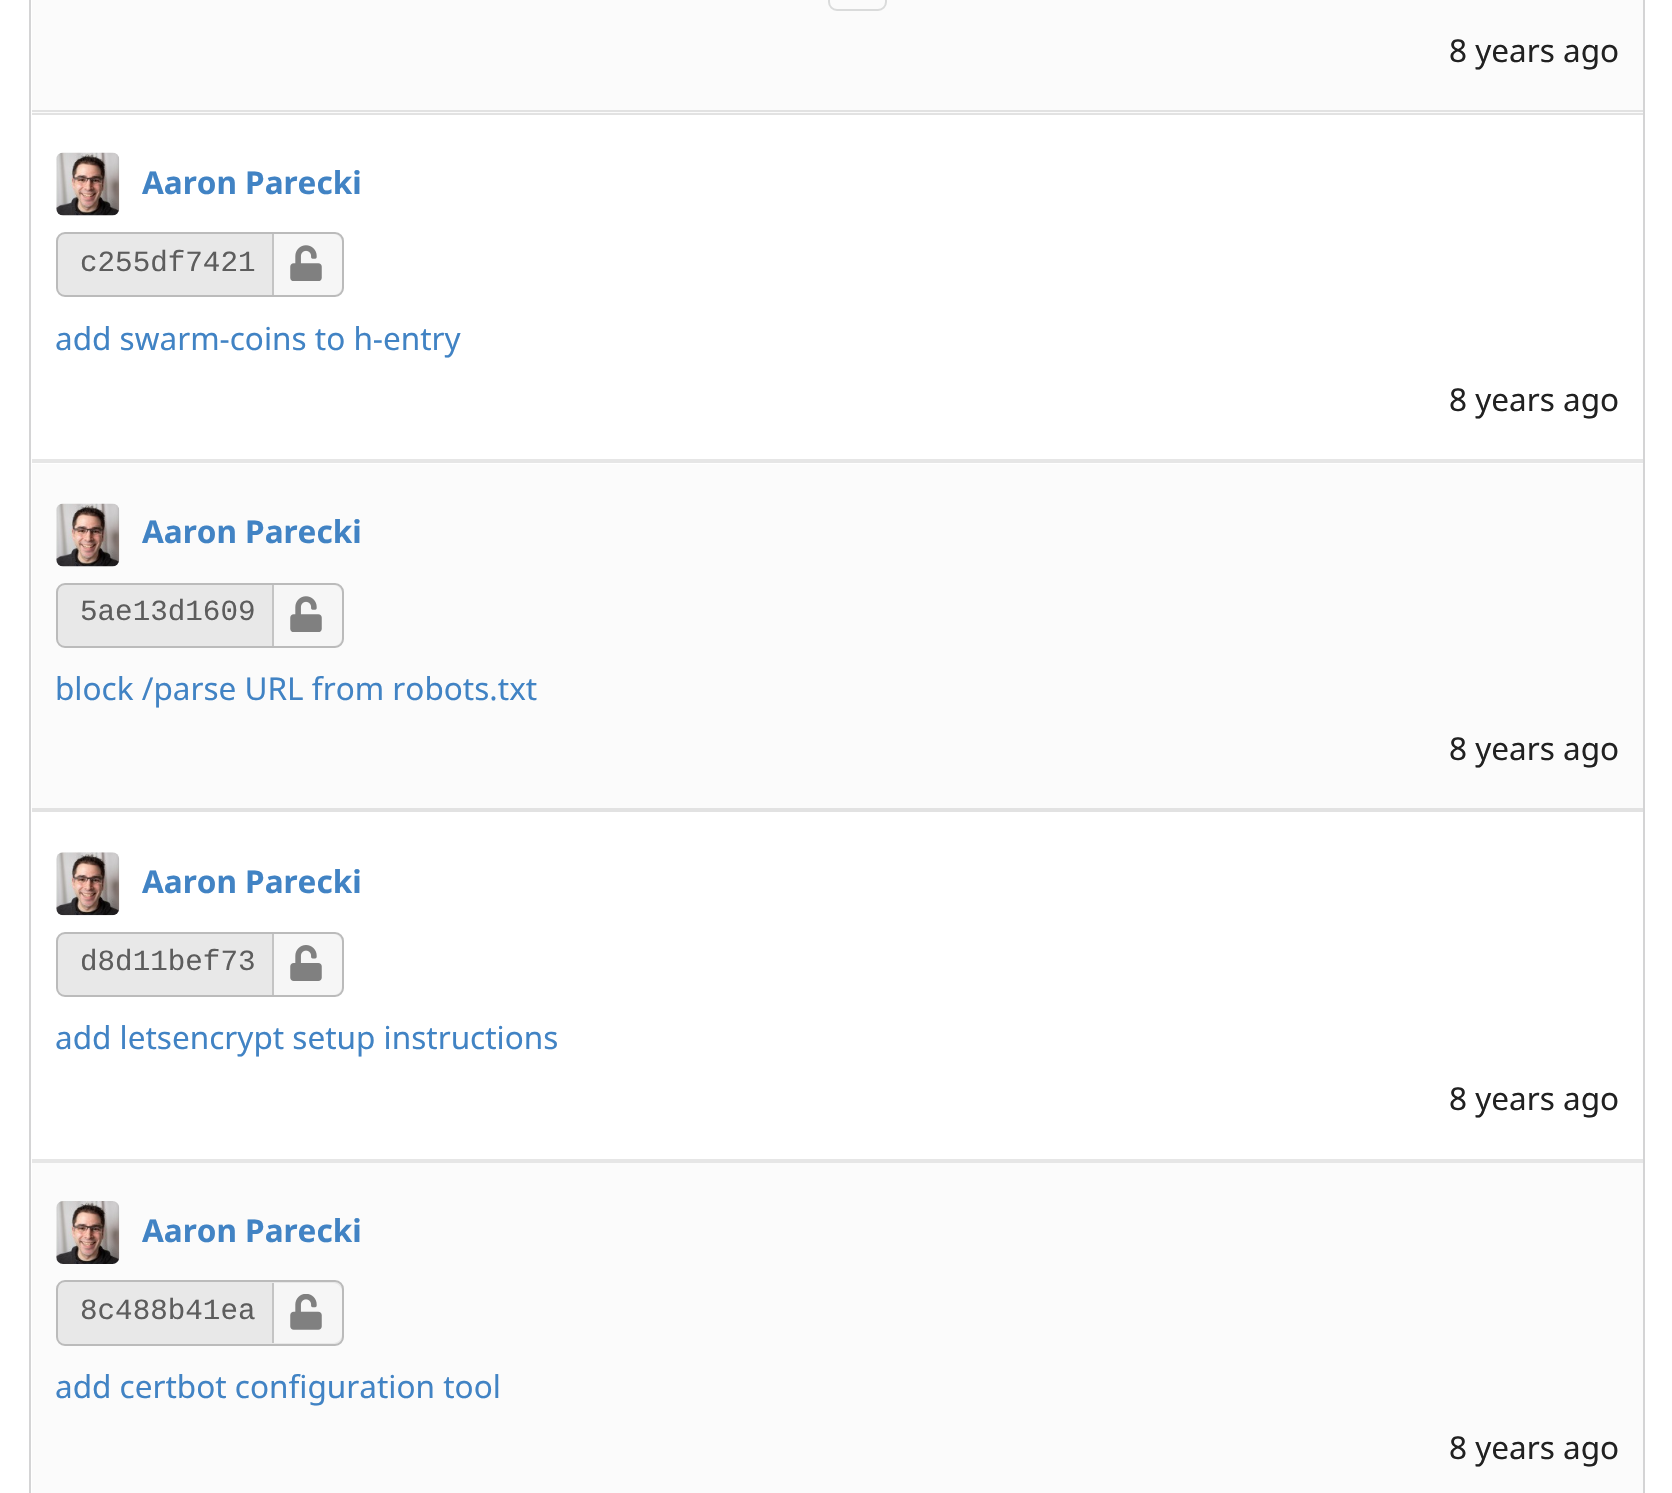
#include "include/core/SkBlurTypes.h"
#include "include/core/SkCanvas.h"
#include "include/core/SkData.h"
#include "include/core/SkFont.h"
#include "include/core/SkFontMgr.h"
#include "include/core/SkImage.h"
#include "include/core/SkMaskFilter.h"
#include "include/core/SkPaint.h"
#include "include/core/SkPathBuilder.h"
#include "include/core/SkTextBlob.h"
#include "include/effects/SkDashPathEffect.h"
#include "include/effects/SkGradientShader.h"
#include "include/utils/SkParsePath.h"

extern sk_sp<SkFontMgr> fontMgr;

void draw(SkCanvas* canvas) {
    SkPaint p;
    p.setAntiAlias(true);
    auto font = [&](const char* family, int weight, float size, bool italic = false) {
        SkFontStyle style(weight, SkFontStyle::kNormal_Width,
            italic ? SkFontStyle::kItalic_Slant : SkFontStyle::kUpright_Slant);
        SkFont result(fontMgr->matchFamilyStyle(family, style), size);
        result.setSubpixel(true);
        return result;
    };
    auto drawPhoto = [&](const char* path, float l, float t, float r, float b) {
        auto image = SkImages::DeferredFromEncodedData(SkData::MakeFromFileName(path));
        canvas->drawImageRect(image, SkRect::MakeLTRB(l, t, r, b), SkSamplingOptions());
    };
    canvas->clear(0xFFFFFFFF);
    {
        const struct { float l, t, r, b; SkColor color; } items[] = {
            {1643, 0, 1645, 1493, 0xFFD4D4D5},
            {29, 0, 31, 1493, 0xFFD4D4D5},
            {32, 0, 1643, 113, 0xFFFBFBFB},
            {32, 110, 1643, 112, 0xFFE2E2E2},
            {32, 113, 1643, 115, 0xFFE2E2E2},
        };
        for (auto [l, t, r, b, color] : items) {
            p.setColor(color);
            canvas->drawRect(SkRect::MakeLTRB(l, t, r, b), p);
        }
    }
    p.setStyle(SkPaint::kStroke_Style);
    p.setStrokeWidth(2);
    p.setColor(0xFFDADBDB);
    canvas->drawRoundRect(SkRect::MakeLTRB(829, -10, 886, 10), 8, 8, p);
    auto font1 = font("Noto Sans", 400, 31.5f);
    p.setStyle(SkPaint::kFill_Style);
    p.setColor(0xFF212121);
    canvas->drawString("8 years ago", 1449, 62, font1, p);
    p.setColor(0xFFE6E6E6);
    canvas->drawRect(SkRect::MakeLTRB(32, 459, 1643, 463), p);
    drawPhoto("media/1.png", 56, 152, 120, 216);
    auto font2 = font("Noto Sans", 700, 31.5f);
    p.setColor(0xFF4183C4);
    canvas->drawString("Aaron Parecki", 142, 194, font2, p);
    p.setColor(0xFFE8E8E8);
    canvas->drawRoundRect(SkRect::MakeLTRB(57, 233, 343, 296), 8, 8, p);
    p.setStyle(SkPaint::kStroke_Style);
    p.setColor(0xFFBBBBBB);
    canvas->drawRoundRect(SkRect::MakeLTRB(57, 233, 343, 296), 8, 8, p);
    auto font3 = font("Liberation Mono", 400, 29.25f);
    p.setStyle(SkPaint::kFill_Style);
    p.setColor(0xFF5D5D5D);
    canvas->drawString("c255df7421", 80, 271, font3, p);
    p.setColor(0xFFF6F6F6);
    canvas->drawPath(SkPathBuilder().moveTo(272, 234).lineTo(333, 234).cubicTo(338, 234, 342, 238, 342, 243).lineTo(342, 286).cubicTo(342, 291, 338, 295, 333, 295).lineTo(272, 295).close().detach(), p);
    p.setColor(0xFFC4C4C4);
    canvas->drawRect(SkRect::MakeLTRB(272, 234, 274, 295), p);
    drawPhoto("media/2.png", 290, 245, 322, 281);
    p.setColor(0xFF4183C4);
    canvas->drawString("add swarm-coins to h-entry", 55, 350, font1, p);
    p.setColor(0xFF212121);
    canvas->drawString("8 years ago", 1449, 411, font1, p);
    p.setColor(0xFFFBFBFB);
    canvas->drawRect(SkRect::MakeLTRB(32, 464, 1643, 808), p);
    p.setColor(0xFFE2E2E2);
    canvas->drawRect(SkRect::MakeLTRB(32, 808, 1643, 812), p);
    drawPhoto("media/3.png", 56, 503, 120, 567);
    p.setColor(0xFF4183C4);
    canvas->drawString("Aaron Parecki", 142, 543, font2, p);
    p.setColor(0xFFE8E8E8);
    canvas->drawRoundRect(SkRect::MakeLTRB(57, 584, 343, 647), 8, 8, p);
    p.setStyle(SkPaint::kStroke_Style);
    p.setColor(0xFFBBBBBB);
    canvas->drawRoundRect(SkRect::MakeLTRB(57, 584, 343, 647), 8, 8, p);
    p.setStyle(SkPaint::kFill_Style);
    p.setColor(0xFF5D5D5D);
    canvas->drawString("5ae13d1609", 80, 620, font3, p);
    p.setColor(0xFFF6F6F6);
    canvas->drawPath(SkPathBuilder().moveTo(272, 585).lineTo(333, 585).cubicTo(338, 585, 342, 589, 342, 594).lineTo(342, 637).cubicTo(342, 642, 338, 646, 333, 646).lineTo(272, 646).close().detach(), p);
    p.setColor(0xFFC4C4C4);
    canvas->drawRect(SkRect::MakeLTRB(272, 585, 274, 646), p);
    drawPhoto("media/2.png", 290, 596, 322, 632);
    p.setColor(0xFF4183C4);
    canvas->drawString("block /parse URL from robots.txt", 55, 700, font1, p);
    p.setColor(0xFF212121);
    canvas->drawString("8 years ago", 1449, 760, font1, p);
    p.setColor(0xFFE6E6E6);
    canvas->drawRect(SkRect::MakeLTRB(32, 1159, 1643, 1163), p);
    drawPhoto("media/4.png", 56, 852, 120, 916);
    p.setColor(0xFF4183C4);
    canvas->drawString("Aaron Parecki", 142, 893, font2, p);
    p.setColor(0xFFE8E8E8);
    canvas->drawRoundRect(SkRect::MakeLTRB(57, 933, 343, 996), 8, 8, p);
    p.setStyle(SkPaint::kStroke_Style);
    p.setColor(0xFFBBBBBB);
    canvas->drawRoundRect(SkRect::MakeLTRB(57, 933, 343, 996), 8, 8, p);
    p.setStyle(SkPaint::kFill_Style);
    p.setColor(0xFF5D5D5D);
    canvas->drawString("d8d11bef73", 80, 970, font3, p);
    p.setColor(0xFFF6F6F6);
    canvas->drawPath(SkPathBuilder().moveTo(272, 934).lineTo(333, 934).cubicTo(338, 934, 342, 938, 342, 943).lineTo(342, 986).cubicTo(342, 991, 338, 995, 333, 995).lineTo(272, 995).close().detach(), p);
    p.setColor(0xFFC4C4C4);
    canvas->drawRect(SkRect::MakeLTRB(272, 934, 274, 995), p);
    drawPhoto("media/5.png", 290, 945, 322, 981);
    p.setColor(0xFF4183C4);
    canvas->drawString("add letsencrypt setup instructions", 55, 1049, font1, p);
    p.setColor(0xFF212121);
    canvas->drawString("8 years ago", 1449, 1110, font1, p);
    p.setColor(0xFFFBFBFB);
    canvas->drawRect(SkRect::MakeLTRB(32, 1163, 1643, 1493), p);
    drawPhoto("media/6.png", 56, 1201, 120, 1264);
    p.setColor(0xFF4183C4);
    canvas->drawString("Aaron Parecki", 142, 1242, font2, p);
    p.setColor(0xFFE8E8E8);
    canvas->drawRoundRect(SkRect::MakeLTRB(57, 1281, 343, 1345), 8, 8, p);
    p.setStyle(SkPaint::kStroke_Style);
    p.setColor(0xFFBBBBBB);
    canvas->drawRoundRect(SkRect::MakeLTRB(57, 1281, 343, 1345), 8, 8, p);
    p.setStyle(SkPaint::kFill_Style);
    p.setColor(0xFF5D5D5D);
    canvas->drawString("8c488b41ea", 80, 1319, font3, p);
    p.setColor(0xFFF6F6F6);
    canvas->drawPath(SkPathBuilder().moveTo(272, 1283).lineTo(333, 1283).cubicTo(338, 1283, 342, 1287, 342, 1292).lineTo(342, 1334).cubicTo(342, 1339, 338, 1343, 333, 1343).lineTo(272, 1343).close().detach(), p);
    p.setColor(0xFFC4C4C4);
    canvas->drawRect(SkRect::MakeLTRB(272, 1283, 274, 1343), p);
    drawPhoto("media/7.png", 290, 1294, 322, 1330);
    p.setColor(0xFF4183C4);
    canvas->drawString("add certbot configuration tool", 55, 1398, font1, p);
    p.setColor(0xFF212121);
    canvas->drawString("8 years ago", 1449, 1459, font1, p);
}
